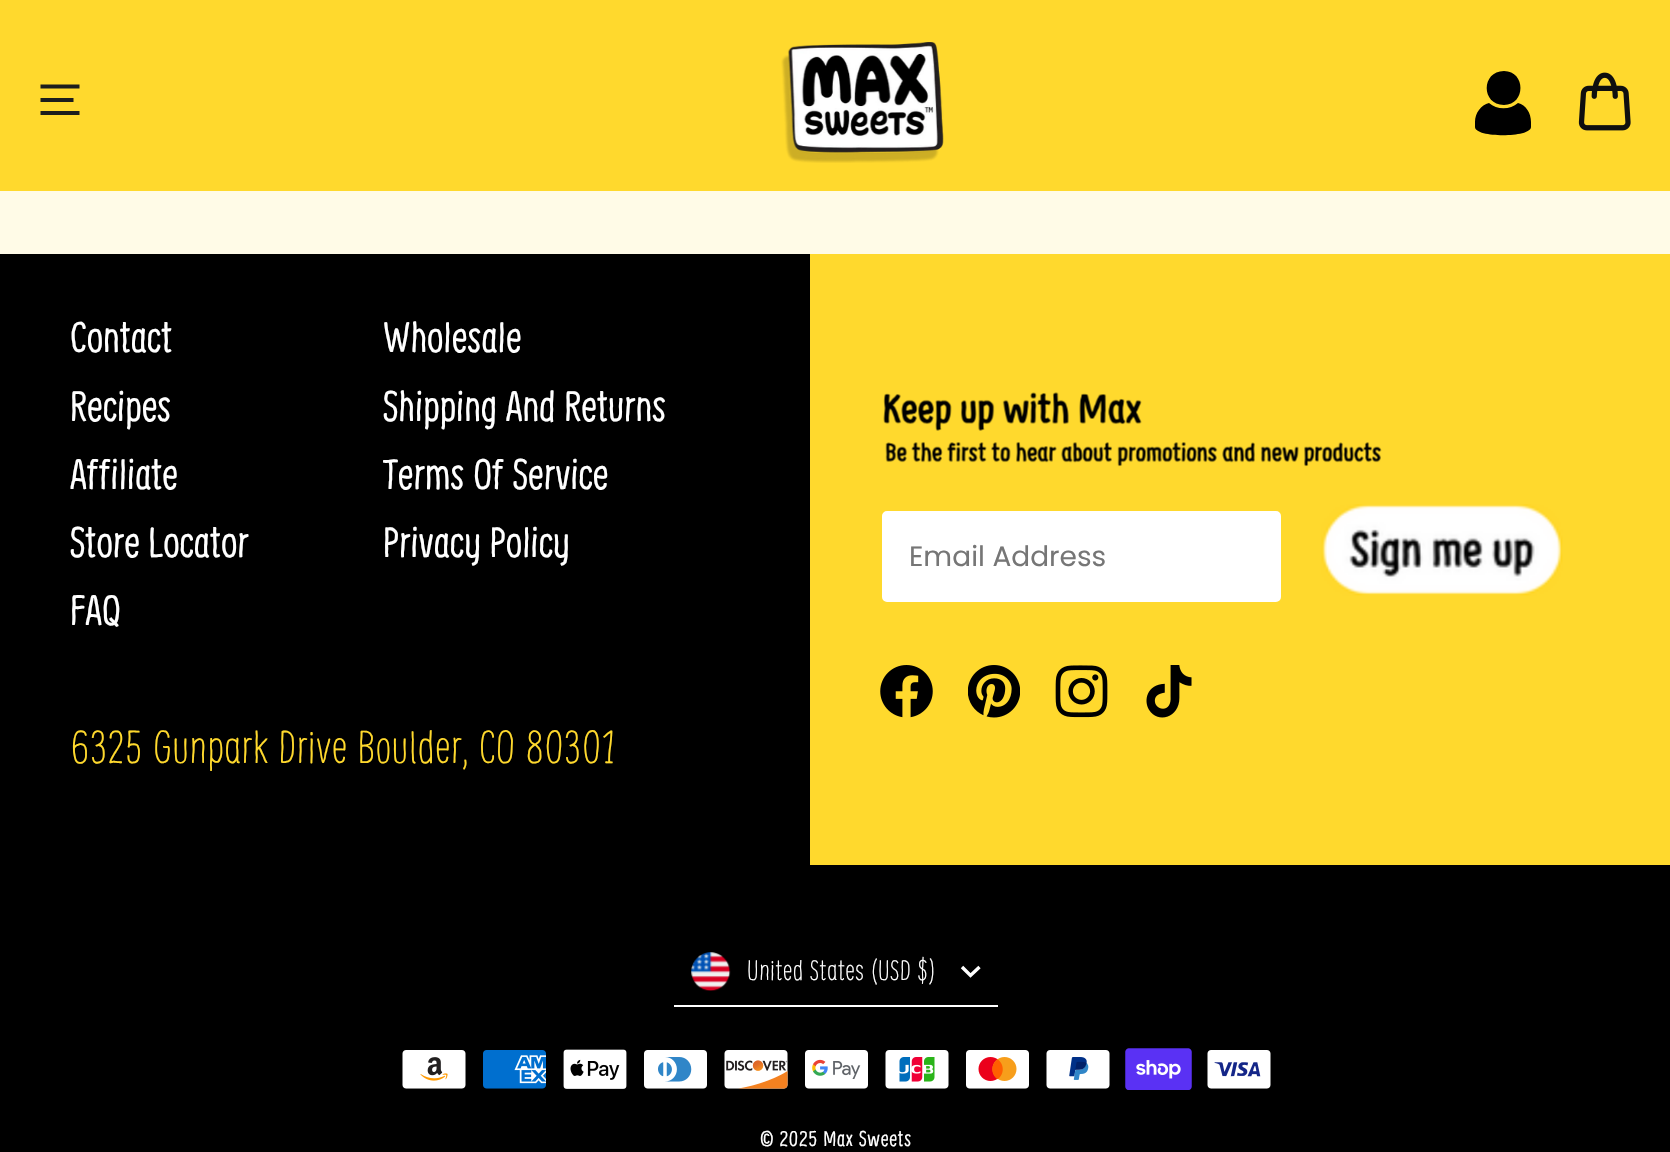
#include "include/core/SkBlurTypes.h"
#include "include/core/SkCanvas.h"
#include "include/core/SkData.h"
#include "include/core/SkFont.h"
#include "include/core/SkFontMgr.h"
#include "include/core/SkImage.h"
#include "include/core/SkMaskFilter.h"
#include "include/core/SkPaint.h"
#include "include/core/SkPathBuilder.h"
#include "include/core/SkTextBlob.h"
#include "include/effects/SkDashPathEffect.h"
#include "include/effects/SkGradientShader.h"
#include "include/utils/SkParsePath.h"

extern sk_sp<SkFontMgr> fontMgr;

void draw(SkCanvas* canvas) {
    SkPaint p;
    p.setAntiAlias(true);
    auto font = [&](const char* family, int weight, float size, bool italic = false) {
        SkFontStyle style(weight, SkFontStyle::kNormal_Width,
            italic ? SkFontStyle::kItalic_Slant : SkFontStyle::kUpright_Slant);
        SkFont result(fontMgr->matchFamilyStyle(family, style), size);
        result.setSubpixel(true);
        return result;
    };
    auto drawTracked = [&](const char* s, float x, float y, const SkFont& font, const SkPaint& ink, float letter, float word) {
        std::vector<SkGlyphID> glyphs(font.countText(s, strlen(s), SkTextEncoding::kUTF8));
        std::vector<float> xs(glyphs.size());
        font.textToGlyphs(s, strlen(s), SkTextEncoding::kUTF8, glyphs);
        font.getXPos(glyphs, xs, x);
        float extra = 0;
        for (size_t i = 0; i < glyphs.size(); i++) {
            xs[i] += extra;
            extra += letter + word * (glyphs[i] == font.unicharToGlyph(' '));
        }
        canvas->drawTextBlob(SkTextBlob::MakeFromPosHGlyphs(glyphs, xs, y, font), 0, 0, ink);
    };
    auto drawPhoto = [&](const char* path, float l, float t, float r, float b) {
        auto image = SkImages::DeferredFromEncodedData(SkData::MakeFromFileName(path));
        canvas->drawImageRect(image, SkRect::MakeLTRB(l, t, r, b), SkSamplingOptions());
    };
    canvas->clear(0xFFFFFBE7);
    p.setColor(0xFFFFD92D);
    canvas->drawRect(SkRect::MakeLTRB(0, 0, 1670, 191), p);
    p.setStyle(SkPaint::kStroke_Style);
    p.setStrokeWidth(3.8f);
    p.setColor(0xFF1C1D1D);
    canvas->drawPath(SkPathBuilder().moveTo(40.5f, 86.5f).lineTo(79.5f, 86.5f).moveTo(40.5f, 100).lineTo(73.5f, 100).moveTo(40.5f, 113).lineTo(79.5f, 113).detach(), p);
    drawPhoto("media/1.png", 781, 42, 944, 163);
    p.setStyle(SkPaint::kFill_Style);
    p.setColor(0xFF000000);
    canvas->drawPath(SkPathBuilder().moveTo(1518, 103).cubicTo(1510, 110, 1497, 110, 1489, 103).cubicTo(1481, 105, 1475, 113, 1475, 122).lineTo(1475, 127).cubicTo(1475, 138, 1531, 138, 1531, 127).lineTo(1531, 122).cubicTo(1531, 113, 1526, 105, 1518, 103).close().moveTo(1504, 105).cubicTo(1526, 105, 1526, 71, 1504, 71).cubicTo(1481, 71, 1481, 105, 1504, 105).close().detach(), p);
    drawPhoto("media/2.png", 1578, 72, 1631, 131);
    canvas->drawRect(SkRect::MakeLTRB(0, 254, 1670, 1152), p);
    auto font1 = font("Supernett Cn", 400, 42);
    p.setColor(0xFFFFFFFF);
    {
        const struct { const char* s; float x, y; } items[] = {
            {"Contact", 70, 352},
            {"Wholesale", 383, 352},
            {"Recipes", 70, 421},
            {"Shipping And Returns", 383, 421},
            {"Affiliate", 70, 489},
            {"Terms Of Service", 383, 489},
            {"Store Locator", 70, 557},
            {"Privacy Policy", 383, 557},
            {"FAQ", 70, 625},
        };
        for (auto [s, x, y] : items) {
            canvas->drawString(s, x, y, font1, p);
        }
    }
    auto font2 = font("Supernett Cn", 300, 45.5f);
    p.setColor(0xFFFFD92D);
    drawTracked("6325 Gunpark Drive Boulder, CO 80301", 70, 763, font2, p, 0.75f, 0);
    canvas->drawRect(SkRect::MakeLTRB(810, 254, 1670, 865), p);
    drawPhoto("media/3.png", 883, 392, 1382, 467);
    p.setColor(0xFFFFFFFF);
    canvas->drawRoundRect(SkRect::MakeLTRB(881, 510, 1282, 603), 6, 6, p);
    p.setStyle(SkPaint::kStroke_Style);
    p.setStrokeWidth(2);
    p.setColor(0xFFFFD92D);
    canvas->drawRoundRect(SkRect::MakeLTRB(881, 510, 1282, 603), 6, 6, p);
    auto font3 = font("Poppins", 400, 28);
    p.setStyle(SkPaint::kFill_Style);
    p.setColor(0xFF767676);
    canvas->drawString("Email Address", 909, 566, font3, p);
    drawPhoto("media/4.png", 1321, 504, 1563, 596);
    drawPhoto("media/5.png", 880, 665, 933, 718);
    drawPhoto("media/6.png", 968, 665, 1020, 718);
    drawPhoto("media/7.png", 1055, 665, 1108, 718);
    drawPhoto("media/8.png", 1146, 665, 1192, 718);
    p.setColor(0xFFFFFFFF);
    canvas->drawRect(SkRect::MakeLTRB(674, 1005, 998, 1007), p);
    drawPhoto("media/9.png", 691, 952, 731, 991);
    auto font4 = font("Supernett Cn", 300, 27.75f);
    drawTracked("United States (USD $)", 747, 980, font4, p, 0.7f, 0);
    p.setStyle(SkPaint::kStroke_Style);
    p.setStrokeWidth(3.4f);
    canvas->drawPath(SkPathBuilder().moveTo(962, 967).lineTo(970.5f, 975.5f).lineTo(979.5f, 967).detach(), p);
    drawPhoto("media/10.png", 402, 1050, 466, 1089);
    drawPhoto("media/11.png", 483, 1050, 546, 1089);
    drawPhoto("media/12.png", 563, 1049, 627, 1089);
    drawPhoto("media/13.png", 644, 1050, 707, 1089);
    drawPhoto("media/14.png", 724, 1050, 788, 1089);
    drawPhoto("media/15.png", 805, 1050, 868, 1089);
    drawPhoto("media/16.png", 885, 1050, 949, 1089);
    drawPhoto("media/17.png", 966, 1050, 1029, 1089);
    drawPhoto("media/18.png", 1046, 1050, 1110, 1089);
    drawPhoto("media/19.png", 1125, 1048, 1192, 1090);
    drawPhoto("media/20.png", 1207, 1050, 1271, 1089);
    auto font5 = font("Supernett Cn", 400, 21);
    p.setStyle(SkPaint::kFill_Style);
    drawTracked("© 2025 Max Sweets", 760, 1146, font5, p, 0.75f, 0);
}
